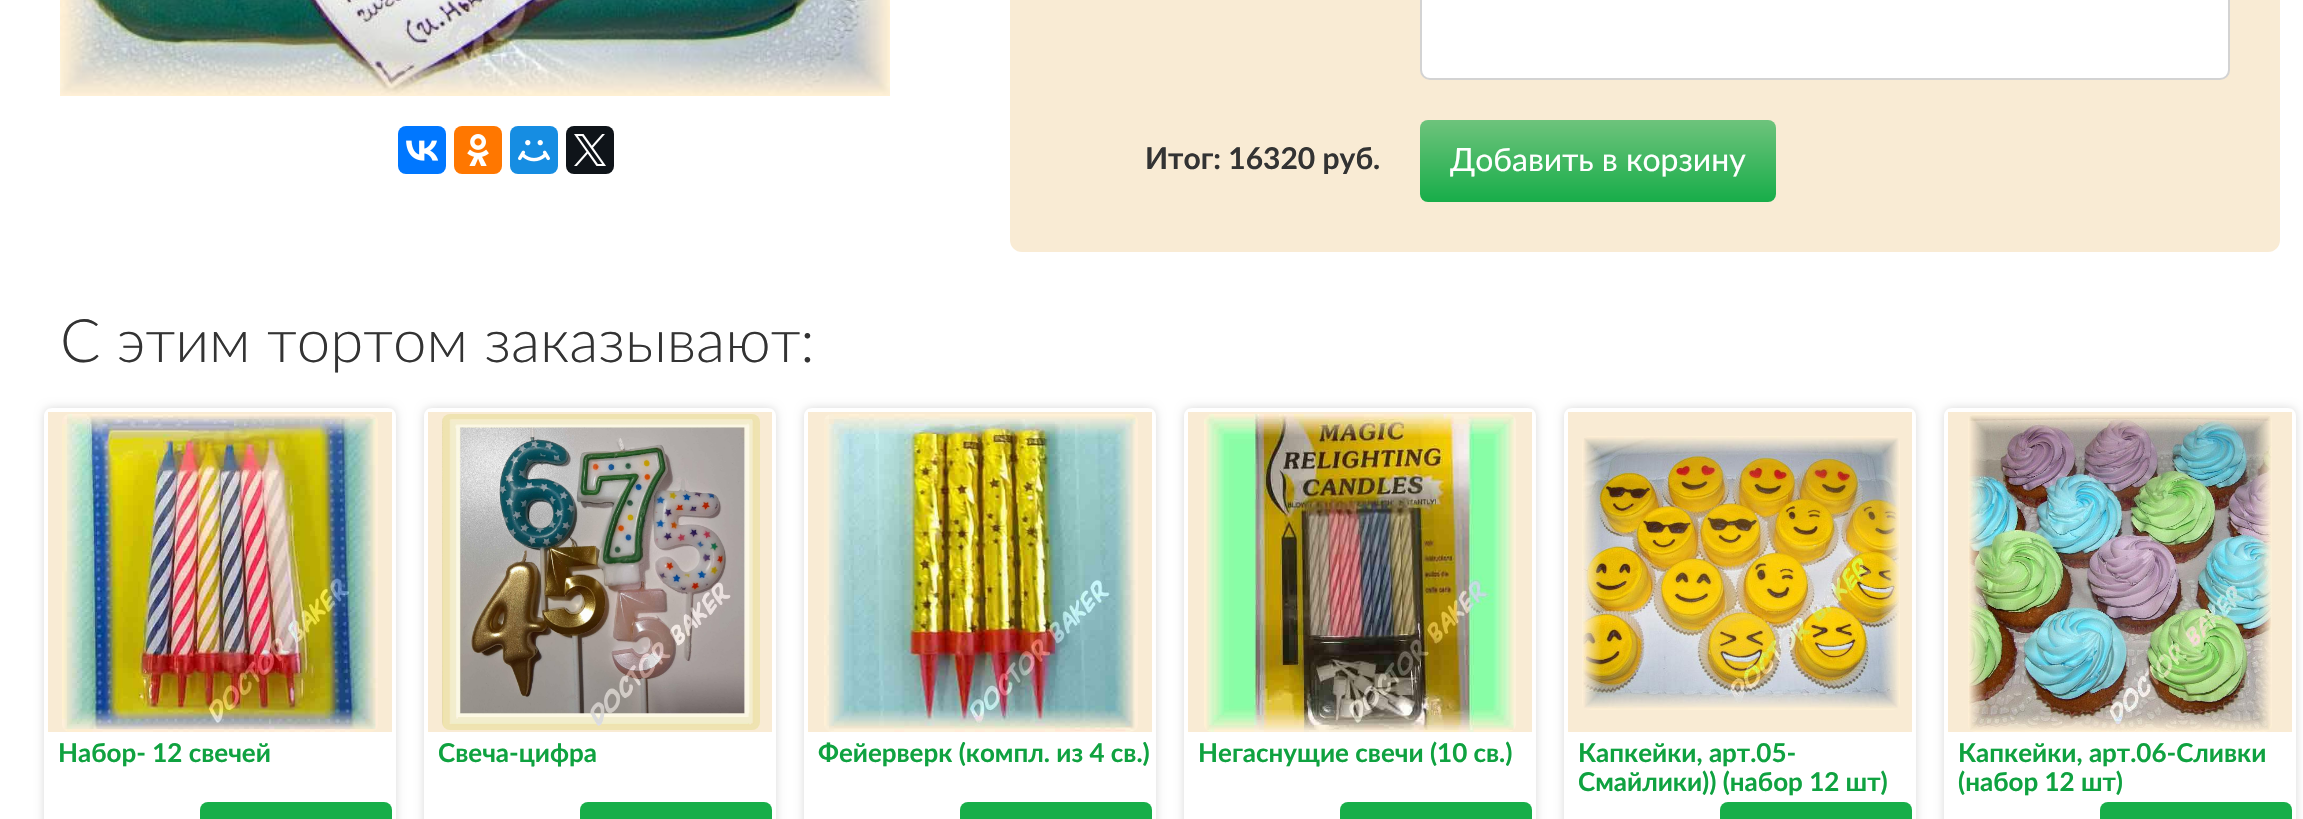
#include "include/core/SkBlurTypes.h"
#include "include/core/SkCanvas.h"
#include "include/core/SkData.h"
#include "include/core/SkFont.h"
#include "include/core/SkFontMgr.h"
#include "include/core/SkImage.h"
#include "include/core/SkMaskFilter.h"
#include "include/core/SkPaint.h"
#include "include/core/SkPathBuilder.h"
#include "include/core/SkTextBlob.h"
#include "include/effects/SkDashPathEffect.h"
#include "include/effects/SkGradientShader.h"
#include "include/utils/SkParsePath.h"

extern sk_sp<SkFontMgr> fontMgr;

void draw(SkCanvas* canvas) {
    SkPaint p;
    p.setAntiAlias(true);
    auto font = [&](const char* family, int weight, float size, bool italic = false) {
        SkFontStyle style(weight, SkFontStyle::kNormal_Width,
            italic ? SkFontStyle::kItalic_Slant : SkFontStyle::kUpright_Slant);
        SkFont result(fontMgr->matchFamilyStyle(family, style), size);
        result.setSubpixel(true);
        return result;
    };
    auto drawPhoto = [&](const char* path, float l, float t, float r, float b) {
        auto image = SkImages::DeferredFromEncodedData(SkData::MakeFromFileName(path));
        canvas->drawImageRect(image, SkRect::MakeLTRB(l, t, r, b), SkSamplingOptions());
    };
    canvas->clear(0xFFFFFFFF);
    drawPhoto("media/1.png", 60, 0, 890, 96);
    p.setColor(0xFF0077FF);
    canvas->drawRoundRect(SkRect::MakeLTRB(398, 126, 446, 174), 8, 8, p);
    drawPhoto("media/2.png", 406, 140, 439, 161);
    p.setColor(0xFFFF7700);
    canvas->drawRoundRect(SkRect::MakeLTRB(454, 126, 502, 174), 8, 8, p);
    drawPhoto("media/3.png", 467, 134, 489, 166);
    p.setColor(0xFF168DE2);
    canvas->drawRoundRect(SkRect::MakeLTRB(510, 126, 558, 174), 8, 8, p);
    drawPhoto("media/4.png", 518, 140, 550, 162);
    p.setColor(0xFF0F1419);
    canvas->drawRoundRect(SkRect::MakeLTRB(566, 126, 614, 174), 8, 8, p);
    drawPhoto("media/5.png", 574, 134, 606, 166);
    p.setColor(0xFFF9EBD4);
    canvas->drawRoundRect(SkRect::MakeLTRB(1010, -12, 2280, 252), 12, 12, p);
    p.setColor(0xFFFFFFFF);
    canvas->drawRoundRect(SkRect::MakeLTRB(1421, -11, 2229, 79), 9, 9, p);
    p.setStyle(SkPaint::kStroke_Style);
    p.setStrokeWidth(2);
    p.setColor(0xFFD3D3D3);
    canvas->drawRoundRect(SkRect::MakeLTRB(1421, -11, 2229, 79), 9, 9, p);
    auto font1 = font("Lato", 700, 30);
    p.setStyle(SkPaint::kFill_Style);
    p.setColor(0xFF333333);
    canvas->drawString("Итог: 16320 руб.", 1145, 169, font1, p);
    {
        const SkColor colors[] = {0xFF6EC37C, 0xFF17AD49};
        const float stops[] = {0, 1};
        const SkPoint ends[] = {{1598, 120}, {1598, 202}};
        p.setShader(SkGradientShader::MakeLinear(ends, colors, stops, 2, SkTileMode::kClamp));
        p.setAlpha(255);
    }
    canvas->drawRoundRect(SkRect::MakeLTRB(1420, 120, 1776, 202), 8, 8, p);
    auto font2 = font("Lato", 400, 32);
    p.setShader(nullptr);
    p.setColor(0xFFFFFFFF);
    canvas->drawString("Добавить в корзину", 1450, 171, font2, p);
    auto font3 = font("Lato", 300, 60);
    p.setColor(0xFF333333);
    canvas->drawString("С этим тортом заказывают:", 60, 362, font3, p);
    canvas->save();
    canvas->clipPath(SkPathBuilder(SkPathFillType::kEvenOdd).moveTo(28, 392).lineTo(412, 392).lineTo(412, 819).lineTo(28, 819).close().moveTo(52, 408).lineTo(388, 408).cubicTo(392.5f, 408, 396, 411.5f, 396, 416).lineTo(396, 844).cubicTo(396, 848.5f, 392.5f, 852, 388, 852).lineTo(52, 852).cubicTo(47.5f, 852, 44, 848.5f, 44, 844).lineTo(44, 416).cubicTo(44, 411.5f, 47.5f, 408, 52, 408).close().detach(), true);
    p.setColor(0x26000000);
    p.setMaskFilter(SkMaskFilter::MakeBlur(kNormal_SkBlurStyle, 5));
    canvas->drawRoundRect(SkRect::MakeLTRB(44, 408, 396, 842), 8, 8, p);
    p.setMaskFilter(nullptr);
    canvas->restore();
    p.setColor(0xFFF9EBD4);
    canvas->drawRect(SkRect::MakeLTRB(48, 412, 392, 732), p);
    drawPhoto("media/6.png", 62, 414, 378, 732);
    auto font4 = font("Lato", 700, 26);
    p.setColor(0xFF0FA240);
    canvas->drawString("Набор- 12 свечей", 58, 762, font4, p);
    p.setColor(0xFF17AE49);
    canvas->drawRoundRect(SkRect::MakeLTRB(200, 802, 392, 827), 8, 8, p);
    canvas->save();
    canvas->clipPath(SkPathBuilder(SkPathFillType::kEvenOdd).moveTo(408, 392).lineTo(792, 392).lineTo(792, 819).lineTo(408, 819).close().moveTo(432, 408).lineTo(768, 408).cubicTo(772.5f, 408, 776, 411.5f, 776, 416).lineTo(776, 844).cubicTo(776, 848.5f, 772.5f, 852, 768, 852).lineTo(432, 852).cubicTo(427.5f, 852, 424, 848.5f, 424, 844).lineTo(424, 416).cubicTo(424, 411.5f, 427.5f, 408, 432, 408).close().detach(), true);
    p.setColor(0x26000000);
    p.setMaskFilter(SkMaskFilter::MakeBlur(kNormal_SkBlurStyle, 5));
    canvas->drawRoundRect(SkRect::MakeLTRB(424, 408, 776, 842), 8, 8, p);
    p.setMaskFilter(nullptr);
    canvas->restore();
    p.setColor(0xFFF9EBD4);
    canvas->drawRect(SkRect::MakeLTRB(428, 412, 772, 732), p);
    drawPhoto("media/7.png", 442, 414, 760, 730);
    p.setColor(0xFF0FA240);
    canvas->drawString("Свеча-цифра", 438, 762, font4, p);
    p.setColor(0xFF17AE49);
    canvas->drawRoundRect(SkRect::MakeLTRB(580, 802, 772, 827), 8, 8, p);
    canvas->save();
    canvas->clipPath(SkPathBuilder(SkPathFillType::kEvenOdd).moveTo(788, 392).lineTo(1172, 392).lineTo(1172, 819).lineTo(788, 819).close().moveTo(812, 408).lineTo(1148, 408).cubicTo(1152.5f, 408, 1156, 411.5f, 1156, 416).lineTo(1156, 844).cubicTo(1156, 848.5f, 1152.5f, 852, 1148, 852).lineTo(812, 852).cubicTo(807.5f, 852, 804, 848.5f, 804, 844).lineTo(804, 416).cubicTo(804, 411.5f, 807.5f, 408, 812, 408).close().detach(), true);
    p.setColor(0x26000000);
    p.setMaskFilter(SkMaskFilter::MakeBlur(kNormal_SkBlurStyle, 5));
    canvas->drawRoundRect(SkRect::MakeLTRB(804, 408, 1156, 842), 8, 8, p);
    p.setMaskFilter(nullptr);
    canvas->restore();
    p.setColor(0xFFF9EBD4);
    canvas->drawRect(SkRect::MakeLTRB(808, 412, 1152, 732), p);
    drawPhoto("media/8.png", 824, 414, 1138, 732);
    canvas->save();
    canvas->clipRect(SkRect::MakeLTRB(808, 742, 1152, 798));
    p.setColor(0xFF0FA240);
    canvas->drawString("Фейерверк (компл. из 4 св.)", 818, 762, font4, p);
    canvas->restore();
    p.setColor(0xFF17AE49);
    canvas->drawRoundRect(SkRect::MakeLTRB(960, 802, 1152, 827), 8, 8, p);
    canvas->save();
    canvas->clipPath(SkPathBuilder(SkPathFillType::kEvenOdd).moveTo(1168, 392).lineTo(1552, 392).lineTo(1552, 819).lineTo(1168, 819).close().moveTo(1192, 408).lineTo(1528, 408).cubicTo(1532.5f, 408, 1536, 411.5f, 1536, 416).lineTo(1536, 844).cubicTo(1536, 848.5f, 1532.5f, 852, 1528, 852).lineTo(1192, 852).cubicTo(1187.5f, 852, 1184, 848.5f, 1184, 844).lineTo(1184, 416).cubicTo(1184, 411.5f, 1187.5f, 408, 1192, 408).close().detach(), true);
    p.setColor(0x26000000);
    p.setMaskFilter(SkMaskFilter::MakeBlur(kNormal_SkBlurStyle, 5));
    canvas->drawRoundRect(SkRect::MakeLTRB(1184, 408, 1536, 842), 8, 8, p);
    p.setMaskFilter(nullptr);
    canvas->restore();
    p.setColor(0xFFF9EBD4);
    canvas->drawRect(SkRect::MakeLTRB(1188, 412, 1532, 732), p);
    drawPhoto("media/9.png", 1204, 414, 1516, 732);
    p.setColor(0xFF0FA240);
    canvas->drawString("Негаснущие свечи (10 св.)", 1198, 762, font4, p);
    p.setColor(0xFF17AE49);
    canvas->drawRoundRect(SkRect::MakeLTRB(1340, 802, 1532, 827), 8, 8, p);
    canvas->save();
    canvas->clipPath(SkPathBuilder(SkPathFillType::kEvenOdd).moveTo(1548, 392).lineTo(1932, 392).lineTo(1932, 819).lineTo(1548, 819).close().moveTo(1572, 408).lineTo(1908, 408).cubicTo(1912.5f, 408, 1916, 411.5f, 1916, 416).lineTo(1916, 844).cubicTo(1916, 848.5f, 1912.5f, 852, 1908, 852).lineTo(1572, 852).cubicTo(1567.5f, 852, 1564, 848.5f, 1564, 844).lineTo(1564, 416).cubicTo(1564, 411.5f, 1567.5f, 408, 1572, 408).close().detach(), true);
    p.setColor(0x26000000);
    p.setMaskFilter(SkMaskFilter::MakeBlur(kNormal_SkBlurStyle, 5));
    canvas->drawRoundRect(SkRect::MakeLTRB(1564, 408, 1916, 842), 8, 8, p);
    p.setMaskFilter(nullptr);
    canvas->restore();
    p.setColor(0xFFF9EBD4);
    canvas->drawRect(SkRect::MakeLTRB(1568, 412, 1912, 732), p);
    drawPhoto("media/10.png", 1582, 436, 1900, 710);
    p.setColor(0xFF0FA240);
    canvas->drawString("Капкейки, арт.05-", 1578, 762, font4, p);
    canvas->drawString("Смайлики)) (набор 12 шт)", 1578, 791, font4, p);
    p.setColor(0xFF17AE49);
    canvas->drawRoundRect(SkRect::MakeLTRB(1720, 802, 1912, 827), 8, 8, p);
    canvas->save();
    canvas->clipPath(SkPathBuilder(SkPathFillType::kEvenOdd).moveTo(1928, 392).lineTo(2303, 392).lineTo(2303, 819).lineTo(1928, 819).close().moveTo(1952, 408).lineTo(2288, 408).cubicTo(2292.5f, 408, 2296, 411.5f, 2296, 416).lineTo(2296, 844).cubicTo(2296, 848.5f, 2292.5f, 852, 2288, 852).lineTo(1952, 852).cubicTo(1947.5f, 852, 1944, 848.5f, 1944, 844).lineTo(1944, 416).cubicTo(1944, 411.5f, 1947.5f, 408, 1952, 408).close().detach(), true);
    p.setColor(0x26000000);
    p.setMaskFilter(SkMaskFilter::MakeBlur(kNormal_SkBlurStyle, 5));
    canvas->drawRoundRect(SkRect::MakeLTRB(1944, 408, 2296, 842), 8, 8, p);
    p.setMaskFilter(nullptr);
    canvas->restore();
    p.setColor(0xFFF9EBD4);
    canvas->drawRect(SkRect::MakeLTRB(1948, 412, 2292, 732), p);
    drawPhoto("media/11.png", 1968, 414, 2272, 732);
    p.setColor(0xFF0FA240);
    canvas->drawString("Капкейки, арт.06-Сливки", 1958, 762, font4, p);
    canvas->drawString("(набор 12 шт)", 1958, 791, font4, p);
    p.setColor(0xFF17AE49);
    canvas->drawRoundRect(SkRect::MakeLTRB(2100, 802, 2292, 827), 8, 8, p);
}
